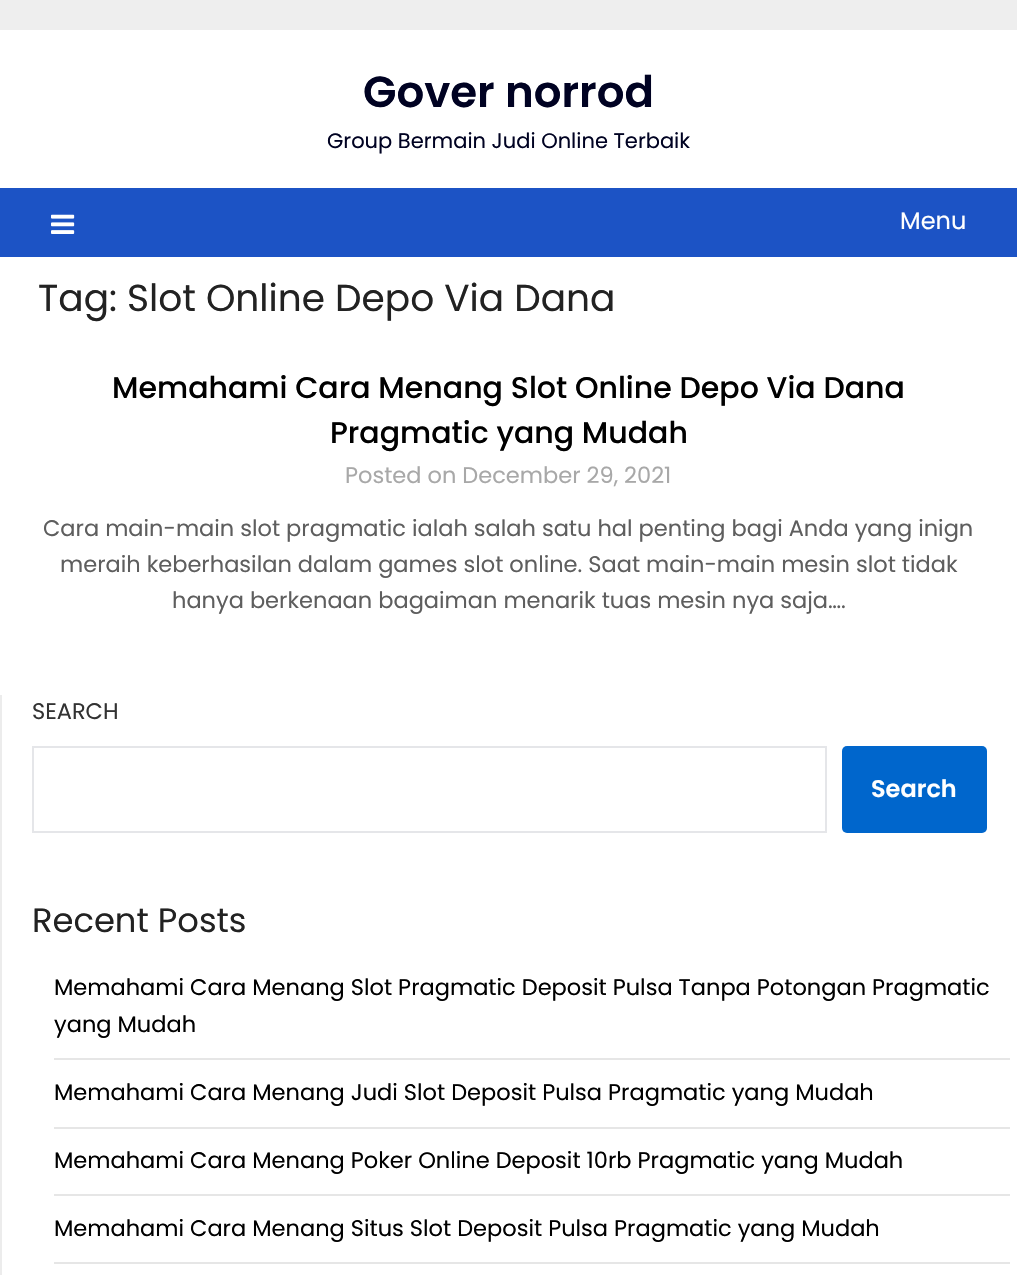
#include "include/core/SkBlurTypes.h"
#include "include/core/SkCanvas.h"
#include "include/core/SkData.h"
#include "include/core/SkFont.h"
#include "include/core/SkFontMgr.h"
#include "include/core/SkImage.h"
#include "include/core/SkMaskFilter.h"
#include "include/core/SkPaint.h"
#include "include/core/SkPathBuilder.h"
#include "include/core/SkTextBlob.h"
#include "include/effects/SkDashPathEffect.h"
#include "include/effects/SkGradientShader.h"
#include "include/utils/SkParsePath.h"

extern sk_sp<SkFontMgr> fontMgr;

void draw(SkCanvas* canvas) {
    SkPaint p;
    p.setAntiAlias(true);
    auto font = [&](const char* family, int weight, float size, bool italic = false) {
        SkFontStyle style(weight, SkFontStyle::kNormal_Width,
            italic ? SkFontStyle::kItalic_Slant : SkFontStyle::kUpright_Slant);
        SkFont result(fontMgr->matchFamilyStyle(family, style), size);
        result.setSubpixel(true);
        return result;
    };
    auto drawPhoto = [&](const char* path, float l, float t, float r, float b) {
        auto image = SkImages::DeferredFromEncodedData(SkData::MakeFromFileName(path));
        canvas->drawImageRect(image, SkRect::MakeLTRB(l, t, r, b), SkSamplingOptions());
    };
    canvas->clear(0xFFEEEEEE);
    p.setColor(0xFFFFFFFF);
    canvas->drawRect(SkRect::MakeLTRB(0, 30, 1017, 188), p);
    auto font1 = font("Poppins", 600, 43.5f);
    p.setColor(0xFF000222);
    canvas->drawString("Gover norrod", 363, 107, font1, p);
    auto font2 = font("Poppins", 400, 21);
    canvas->drawString("Group Bermain Judi Online Terbaik", 327, 148, font2, p);
    p.setColor(0xFF1C53C5);
    canvas->drawRect(SkRect::MakeLTRB(0, 188, 1017, 257), p);
    drawPhoto("media/1.png", 51, 214, 75, 234);
    auto font3 = font("Poppins", 400, 24);
    p.setColor(0xFFFFFFFF);
    canvas->drawString("Menu", 900, 229, font3, p);
    canvas->drawRect(SkRect::MakeLTRB(0, 257, 1017, 1275), p);
    auto font4 = font("Poppins", 400, 37.5f);
    p.setColor(0xFF222222);
    canvas->drawString("Tag: Slot Online Depo Via Dana", 38, 311, font4, p);
    auto font5 = font("Poppins", 500, 30);
    p.setColor(0xFF000000);
    canvas->drawString("Memahami Cara Menang Slot Online Depo Via Dana", 112, 398, font5, p);
    canvas->drawString("Pragmatic yang Mudah", 330, 443, font5, p);
    auto font6 = font("Poppins", 400, 22.5f);
    p.setColor(0xFFA8A8A8);
    canvas->drawString("Posted on December 29, 2021", 345, 483, font6, p);
    p.setColor(0xFF5E5E5E);
    {
        const struct { const char* s; float x, y; } items[] = {
            {"Cara main-main slot pragmatic ialah salah satu hal penting bagi Anda yang inign", 43, 536},
            {"meraih keberhasilan dalam games slot online. Saat main-main mesin slot tidak", 60, 572},
            {"hanya berkenaan bagaiman menarik tuas mesin nya saja….", 172, 608},
        };
        for (auto [s, x, y] : items) {
            canvas->drawString(s, x, y, font6, p);
        }
    }
    p.setColor(0xFFECECEC);
    canvas->drawRect(SkRect::MakeLTRB(0, 695, 2, 1275), p);
    p.setColor(0xFF333333);
    canvas->drawString("SEARCH", 32, 719, font6, p);
    p.setStyle(SkPaint::kStroke_Style);
    p.setStrokeWidth(2);
    p.setColor(0xFFE5E6E9);
    canvas->drawRect(SkRect::MakeLTRB(33, 747, 826, 832), p);
    p.setStyle(SkPaint::kFill_Style);
    p.setColor(0xFF0066CC);
    canvas->drawRoundRect(SkRect::MakeLTRB(842, 746, 987, 833), 5, 5, p);
    auto font7 = font("Poppins", 600, 24);
    p.setColor(0xFFFFFFFF);
    canvas->drawString("Search", 871, 797, font7, p);
    auto font8 = font("Poppins", 400, 33.75f);
    p.setColor(0xFF222222);
    canvas->drawString("Recent Posts", 32, 932, font8, p);
    p.setColor(0xFFE6E6E6);
    canvas->drawRect(SkRect::MakeLTRB(54, 1058, 1010, 1060), p);
    p.setColor(0xFF000000);
    canvas->drawString("Memahami Cara Menang Slot Pragmatic Deposit Pulsa Tanpa Potongan Pragmatic", 54, 995, font6, p);
    canvas->drawString("yang Mudah", 54, 1032, font6, p);
    p.setColor(0xFFE6E6E6);
    canvas->drawRect(SkRect::MakeLTRB(54, 1127, 1010, 1129), p);
    p.setColor(0xFF000000);
    canvas->drawString("Memahami Cara Menang Judi Slot Deposit Pulsa Pragmatic yang Mudah", 54, 1100, font6, p);
    p.setColor(0xFFE6E6E6);
    canvas->drawRect(SkRect::MakeLTRB(54, 1194, 1010, 1196), p);
    p.setColor(0xFF000000);
    canvas->drawString("Memahami Cara Menang Poker Online Deposit 10rb Pragmatic yang Mudah", 54, 1168, font6, p);
    p.setColor(0xFFE6E6E6);
    canvas->drawRect(SkRect::MakeLTRB(54, 1262, 1010, 1264), p);
    p.setColor(0xFF000000);
    canvas->drawString("Memahami Cara Menang Situs Slot Deposit Pulsa Pragmatic yang Mudah", 54, 1236, font6, p);
}
